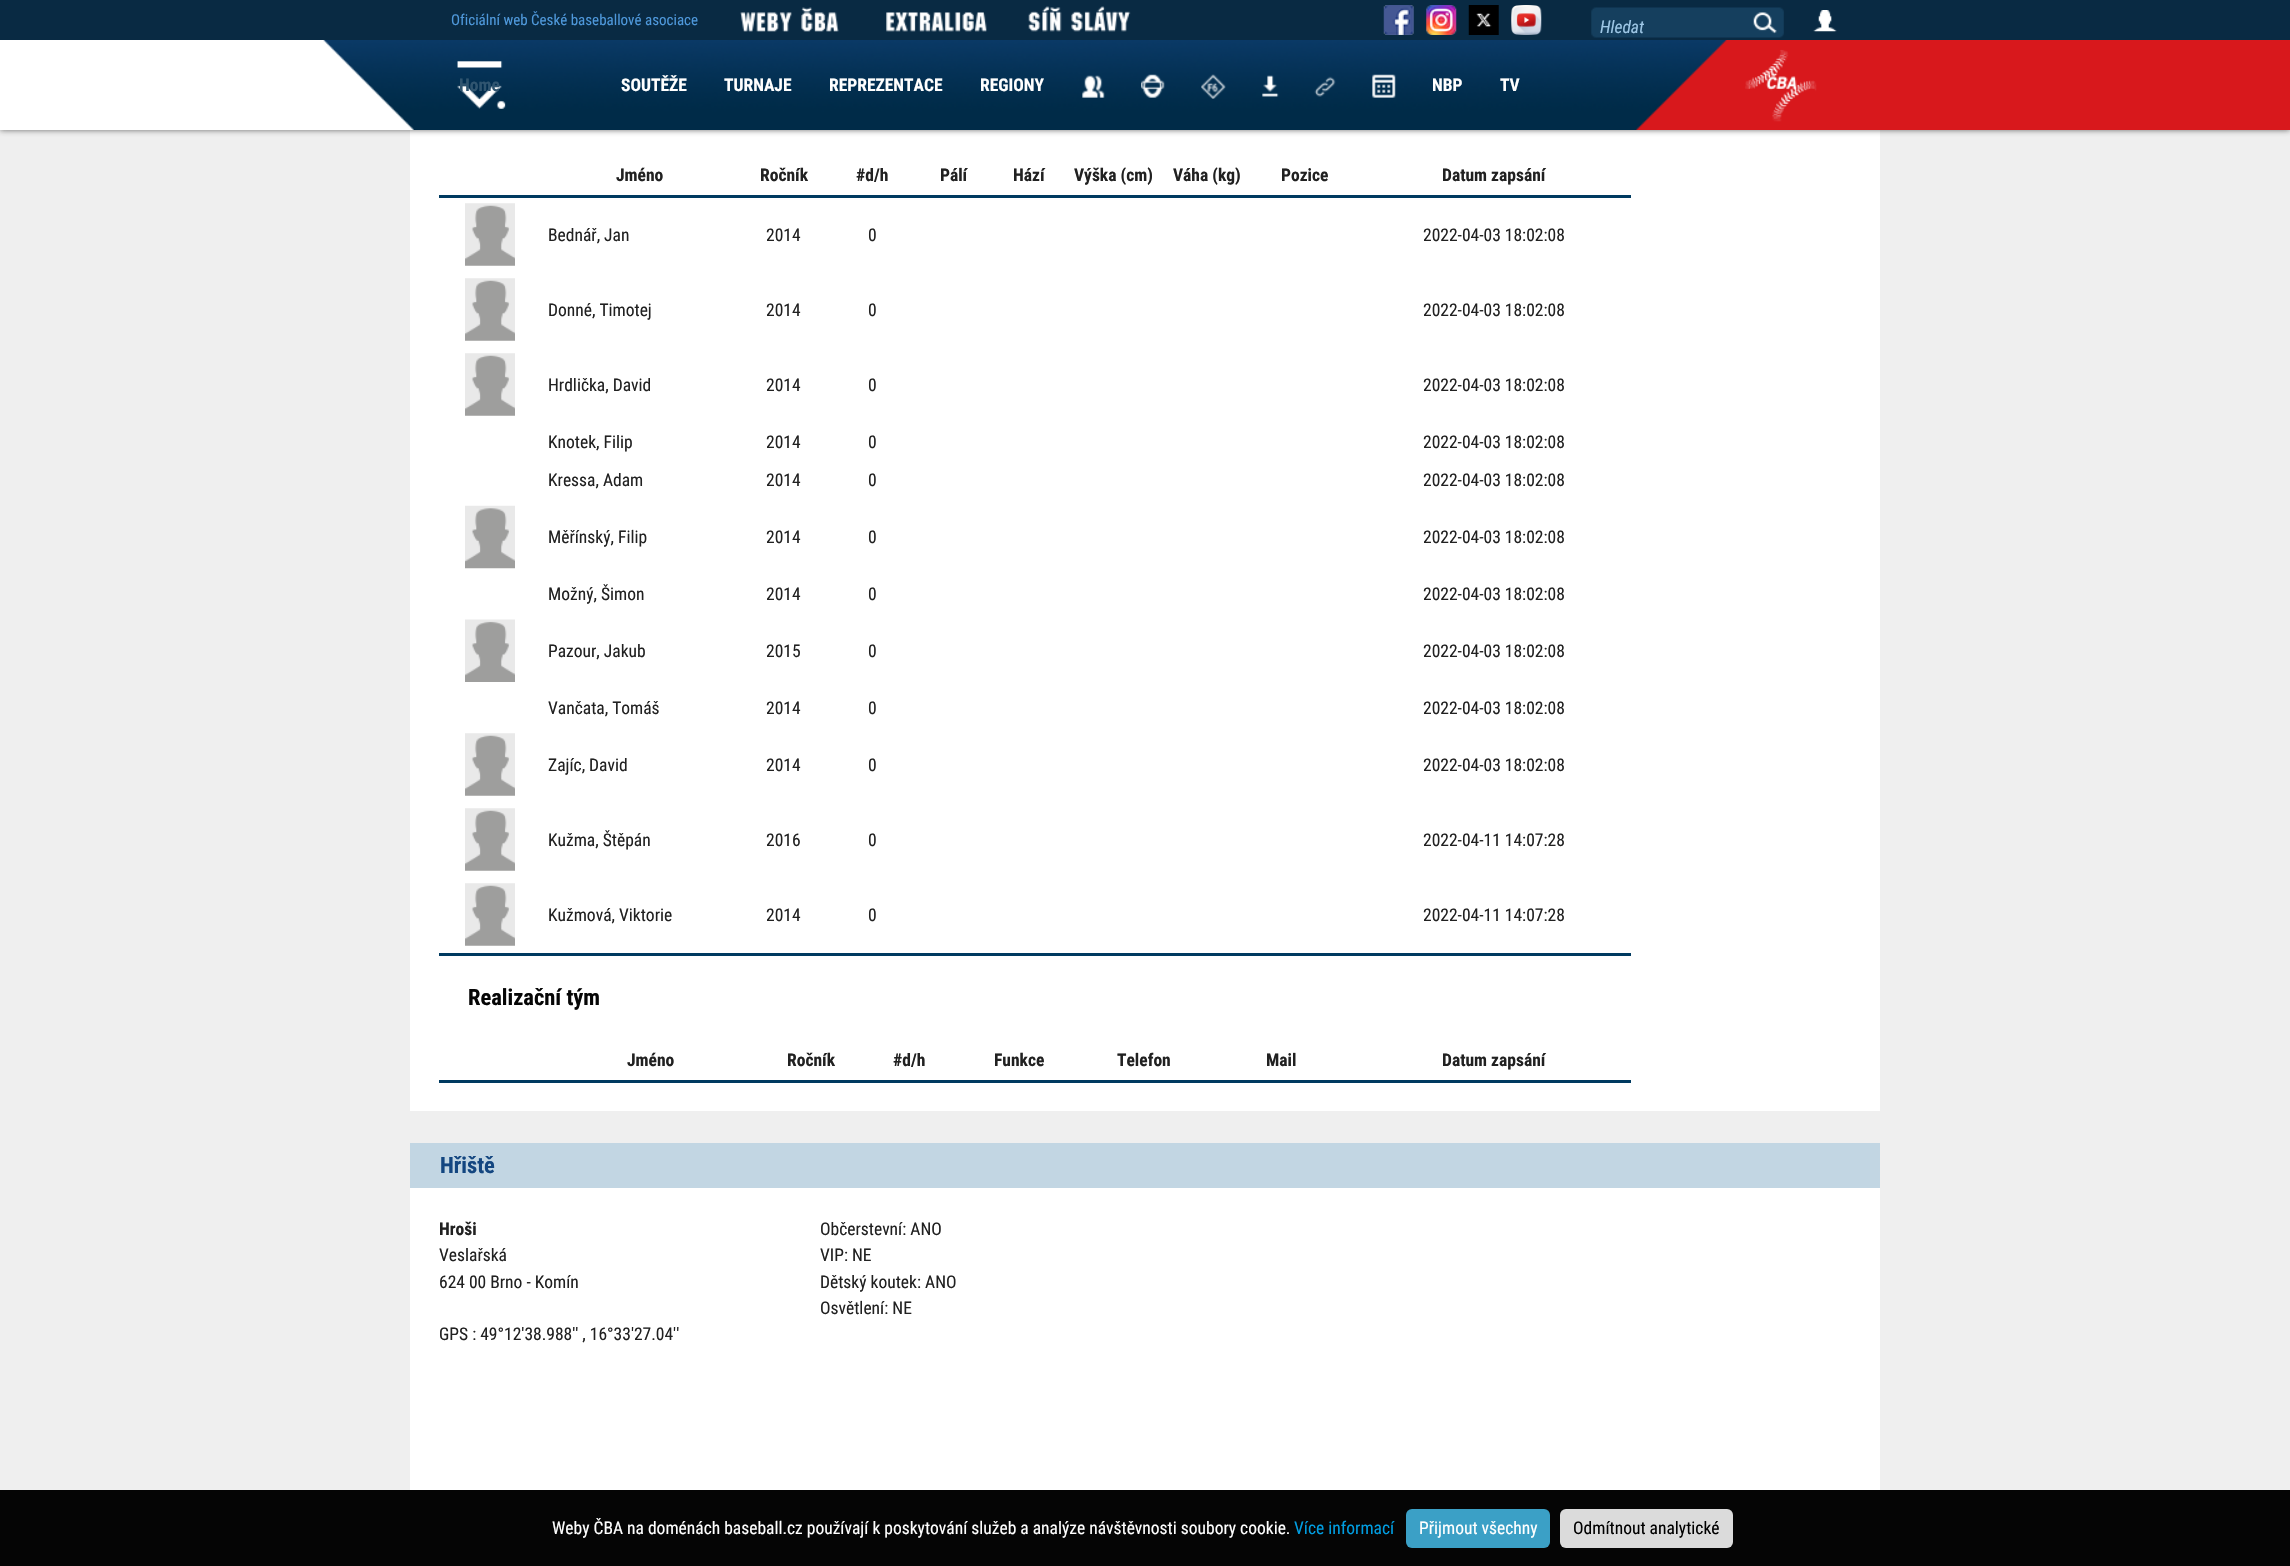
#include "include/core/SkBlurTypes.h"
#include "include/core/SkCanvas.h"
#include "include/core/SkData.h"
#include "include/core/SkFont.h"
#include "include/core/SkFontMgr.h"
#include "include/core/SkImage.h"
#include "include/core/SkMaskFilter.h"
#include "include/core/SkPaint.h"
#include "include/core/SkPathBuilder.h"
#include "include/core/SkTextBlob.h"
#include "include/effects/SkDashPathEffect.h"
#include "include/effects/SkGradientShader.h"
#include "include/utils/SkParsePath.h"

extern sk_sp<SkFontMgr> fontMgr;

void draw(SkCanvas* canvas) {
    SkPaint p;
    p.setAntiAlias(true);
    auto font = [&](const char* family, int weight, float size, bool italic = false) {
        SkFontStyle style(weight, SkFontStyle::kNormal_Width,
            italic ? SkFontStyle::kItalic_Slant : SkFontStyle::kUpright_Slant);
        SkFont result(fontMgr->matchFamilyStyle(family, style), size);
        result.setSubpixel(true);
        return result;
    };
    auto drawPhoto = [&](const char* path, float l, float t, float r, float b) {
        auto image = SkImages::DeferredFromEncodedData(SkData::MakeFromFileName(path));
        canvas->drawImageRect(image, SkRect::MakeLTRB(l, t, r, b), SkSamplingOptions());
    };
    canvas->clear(0xFFEFEFEF);
    p.setColor(0xFFFFFFFF);
    canvas->drawRect(SkRect::MakeLTRB(410, 130, 1880, 1111), p);
    p.setColor(0xA11D1D1B);
    p.setMaskFilter(SkMaskFilter::MakeBlur(kNormal_SkBlurStyle, 3));
    canvas->drawRect(SkRect::MakeLTRB(0, 40, 2290, 130), p);
    p.setMaskFilter(nullptr);
    p.setColor(0xFF092A43);
    canvas->drawRect(SkRect::MakeLTRB(0, 0, 2290, 40), p);
    auto font1 = font("Roboto Condensed", 400, 15);
    p.setColor(0xFF4E98DB);
    canvas->drawString("Oficiální web České baseballové asociace", 451, 25, font1, p);
    drawPhoto("media/1.png", 740, 7, 839, 32);
    drawPhoto("media/2.png", 886, 12, 987, 32);
    drawPhoto("media/3.png", 1028, 6, 1131, 32);
    drawPhoto("media/4.png", 1383, 5, 1414, 35);
    drawPhoto("media/5.png", 1426, 5, 1457, 35);
    drawPhoto("media/6.png", 1468, 5, 1499, 35);
    drawPhoto("media/7.png", 1511, 5, 1542, 35);
    drawPhoto("media/8.png", 1591, 7, 1784, 38);
    auto font2 = font("Roboto Condensed", 400, 17.5f, true);
    p.setColor(0xFF9EC7E6);
    canvas->drawString("Hledat", 1600, 33, font2, p);
    drawPhoto("media/9.png", 1813, 10, 1837, 32);
    p.setColor(0xFFFFFFFF);
    canvas->drawRect(SkRect::MakeLTRB(0, 40, 323, 130), p);
    drawPhoto("media/10.png", 323, 40, 1817, 130);
    p.setColor(0xFFD8181C);
    canvas->drawRect(SkRect::MakeLTRB(1817, 40, 2290, 130), p);
    auto font3 = font("Roboto Condensed", 700, 17.5f);
    p.setColor(0xFF305570);
    canvas->drawString("Home", 459, 91, font3, p);
    p.setColor(0xFFFFFFFF);
    {
        const struct { const char* s; float x, y; } items[] = {
            {"SOUTĚŽE", 621, 91},
            {"TURNAJE", 724, 91},
            {"REPREZENTACE", 829, 91},
            {"REGIONY", 980, 91},
        };
        for (auto [s, x, y] : items) {
            canvas->drawString(s, x, y, font3, p);
        }
    }
    drawPhoto("media/11.png", 1082, 75, 1105, 98);
    drawPhoto("media/12.png", 1141, 74, 1165, 98);
    drawPhoto("media/13.png", 1201, 74, 1226, 99);
    drawPhoto("media/14.png", 1262, 75, 1279, 97);
    drawPhoto("media/15.png", 1314, 76, 1336, 97);
    drawPhoto("media/16.png", 1372, 74, 1396, 98);
    canvas->drawString("NBP", 1432, 91, font3, p);
    canvas->drawString("TV", 1500, 91, font3, p);
    p.setColor(0xFF212121);
    {
        const struct { const char* s; float x, y; } items[] = {
            {"Jméno", 616, 181},
            {"Ročník", 760, 181},
            {"#d/h", 856, 181},
            {"Pálí", 940, 181},
            {"Hází", 1013, 181},
            {"Výška (cm)", 1074, 181},
            {"Váha (kg)", 1173, 181},
            {"Pozice", 1281, 181},
            {"Datum zapsání", 1442, 181},
        };
        for (auto [s, x, y] : items) {
            canvas->drawString(s, x, y, font3, p);
        }
    }
    p.setColor(0xFF003A60);
    canvas->drawRect(SkRect::MakeLTRB(439, 195, 1631, 198), p);
    drawPhoto("media/17.png", 465, 203, 515, 266);
    auto font4 = font("Roboto Condensed", 400, 17.5f);
    p.setColor(0xFF212121);
    {
        const struct { const char* s; float x, y; } items[] = {
            {"Bednář, Jan", 548, 241},
            {"2014", 766, 241},
            {"0", 868, 241},
            {"2022-04-03 18:02:08", 1423, 241},
        };
        for (auto [s, x, y] : items) {
            canvas->drawString(s, x, y, font4, p);
        }
    }
    drawPhoto("media/17.png", 465, 278, 515, 341);
    {
        const struct { const char* s; float x, y; } items[] = {
            {"Donné, Timotej", 548, 316},
            {"2014", 766, 316},
            {"0", 868, 316},
            {"2022-04-03 18:02:08", 1423, 316},
        };
        for (auto [s, x, y] : items) {
            canvas->drawString(s, x, y, font4, p);
        }
    }
    drawPhoto("media/18.png", 465, 353, 515, 416);
    {
        const struct { const char* s; float x, y; } items[] = {
            {"Hrdlička, David", 548, 391},
            {"2014", 766, 391},
            {"0", 868, 391},
            {"2022-04-03 18:02:08", 1423, 391},
            {"Knotek, Filip", 548, 448},
            {"2014", 766, 448},
            {"0", 868, 448},
            {"2022-04-03 18:02:08", 1423, 448},
            {"Kressa, Adam", 548, 486},
            {"2014", 766, 486},
            {"0", 868, 486},
            {"2022-04-03 18:02:08", 1423, 486},
        };
        for (auto [s, x, y] : items) {
            canvas->drawString(s, x, y, font4, p);
        }
    }
    drawPhoto("media/19.png", 465, 505, 515, 569);
    {
        const struct { const char* s; float x, y; } items[] = {
            {"Měřínský, Filip", 548, 543},
            {"2014", 766, 543},
            {"0", 868, 543},
            {"2022-04-03 18:02:08", 1423, 543},
            {"Možný, Šimon", 548, 600},
            {"2014", 766, 600},
            {"0", 868, 600},
            {"2022-04-03 18:02:08", 1423, 600},
        };
        for (auto [s, x, y] : items) {
            canvas->drawString(s, x, y, font4, p);
        }
    }
    drawPhoto("media/20.png", 465, 619, 515, 682);
    {
        const struct { const char* s; float x, y; } items[] = {
            {"Pazour, Jakub", 548, 657},
            {"2015", 766, 657},
            {"0", 868, 657},
            {"2022-04-03 18:02:08", 1423, 657},
            {"Vančata, Tomáš", 548, 714},
            {"2014", 766, 714},
            {"0", 868, 714},
            {"2022-04-03 18:02:08", 1423, 714},
        };
        for (auto [s, x, y] : items) {
            canvas->drawString(s, x, y, font4, p);
        }
    }
    drawPhoto("media/17.png", 465, 733, 515, 796);
    {
        const struct { const char* s; float x, y; } items[] = {
            {"Zajíc, David", 548, 771},
            {"2014", 766, 771},
            {"0", 868, 771},
            {"2022-04-03 18:02:08", 1423, 771},
        };
        for (auto [s, x, y] : items) {
            canvas->drawString(s, x, y, font4, p);
        }
    }
    drawPhoto("media/17.png", 465, 808, 515, 871);
    {
        const struct { const char* s; float x, y; } items[] = {
            {"Kužma, Štěpán", 548, 846},
            {"2016", 766, 846},
            {"0", 868, 846},
            {"2022-04-11 14:07:28", 1423, 846},
        };
        for (auto [s, x, y] : items) {
            canvas->drawString(s, x, y, font4, p);
        }
    }
    p.setColor(0xFF003A60);
    canvas->drawRect(SkRect::MakeLTRB(439, 953, 1631, 956), p);
    drawPhoto("media/17.png", 465, 883, 515, 946);
    p.setColor(0xFF212121);
    {
        const struct { const char* s; float x, y; } items[] = {
            {"Kužmová, Viktorie", 548, 921},
            {"2014", 766, 921},
            {"0", 868, 921},
            {"2022-04-11 14:07:28", 1423, 921},
        };
        for (auto [s, x, y] : items) {
            canvas->drawString(s, x, y, font4, p);
        }
    }
    auto font5 = font("Roboto Condensed", 700, 22.5f);
    p.setColor(0xFF060606);
    canvas->drawString("Realizační tým", 468, 1005, font5, p);
    p.setColor(0xFF212121);
    {
        const struct { const char* s; float x, y; } items[] = {
            {"Jméno", 627, 1066},
            {"Ročník", 787, 1066},
            {"#d/h", 893, 1066},
            {"Funkce", 994, 1066},
            {"Telefon", 1117, 1066},
            {"Mail", 1266, 1066},
            {"Datum zapsání", 1442, 1066},
        };
        for (auto [s, x, y] : items) {
            canvas->drawString(s, x, y, font3, p);
        }
    }
    {
        const struct { float l, t, r, b; SkColor color; } items[] = {
            {439, 1080, 1631, 1083, 0xFF003A60},
            {410, 1188, 1880, 1490, 0xFFFFFFFF},
            {410, 1143, 1880, 1188, 0xFFC2D6E3},
        };
        for (auto [l, t, r, b, color] : items) {
            p.setColor(color);
            canvas->drawRect(SkRect::MakeLTRB(l, t, r, b), p);
        }
    }
    p.setColor(0xFF134680);
    canvas->drawString("Hřiště", 440, 1173, font5, p);
    p.setColor(0xFF212121);
    canvas->drawString("Hroši", 439, 1235, font3, p);
    {
        const struct { const char* s; float x, y; } items[] = {
            {"Veslařská", 439, 1261},
            {"624 00 Brno - Komín", 439, 1288},
            {"GPS : 49°12'38.988'' , 16°33'27.04''", 439, 1340},
            {"Občerstevní: ANO", 820, 1235},
            {"VIP: NE", 820, 1261},
            {"Dětský koutek: ANO", 820, 1288},
            {"Osvětlení: NE", 820, 1314},
        };
        for (auto [s, x, y] : items) {
            canvas->drawString(s, x, y, font4, p);
        }
    }
    p.setColor(0xFF050505);
    canvas->drawRect(SkRect::MakeLTRB(0, 1490, 2290, 1566), p);
    p.setColor(0xFFFFFFFF);
    canvas->drawString("Weby ČBA na doménách baseball.cz používají k poskytování služeb a analýze návštěvnosti soubory cookie.", 552, 1534, font4, p);
    p.setColor(0xFF009DE1);
    canvas->drawString("Více informací", 1294, 1534, font4, p);
    p.setColor(0xFF3BA0C6);
    canvas->drawRoundRect(SkRect::MakeLTRB(1406, 1509, 1550, 1548), 6, 6, p);
    p.setColor(0xFFFFFFFF);
    canvas->drawString("Přijmout všechny", 1419, 1534, font4, p);
    p.setColor(0xFFDBDBDB);
    canvas->drawRoundRect(SkRect::MakeLTRB(1560, 1509, 1733, 1548), 6, 6, p);
    p.setColor(0xFF000000);
    canvas->drawString("Odmítnout analytické", 1573, 1534, font4, p);
}
